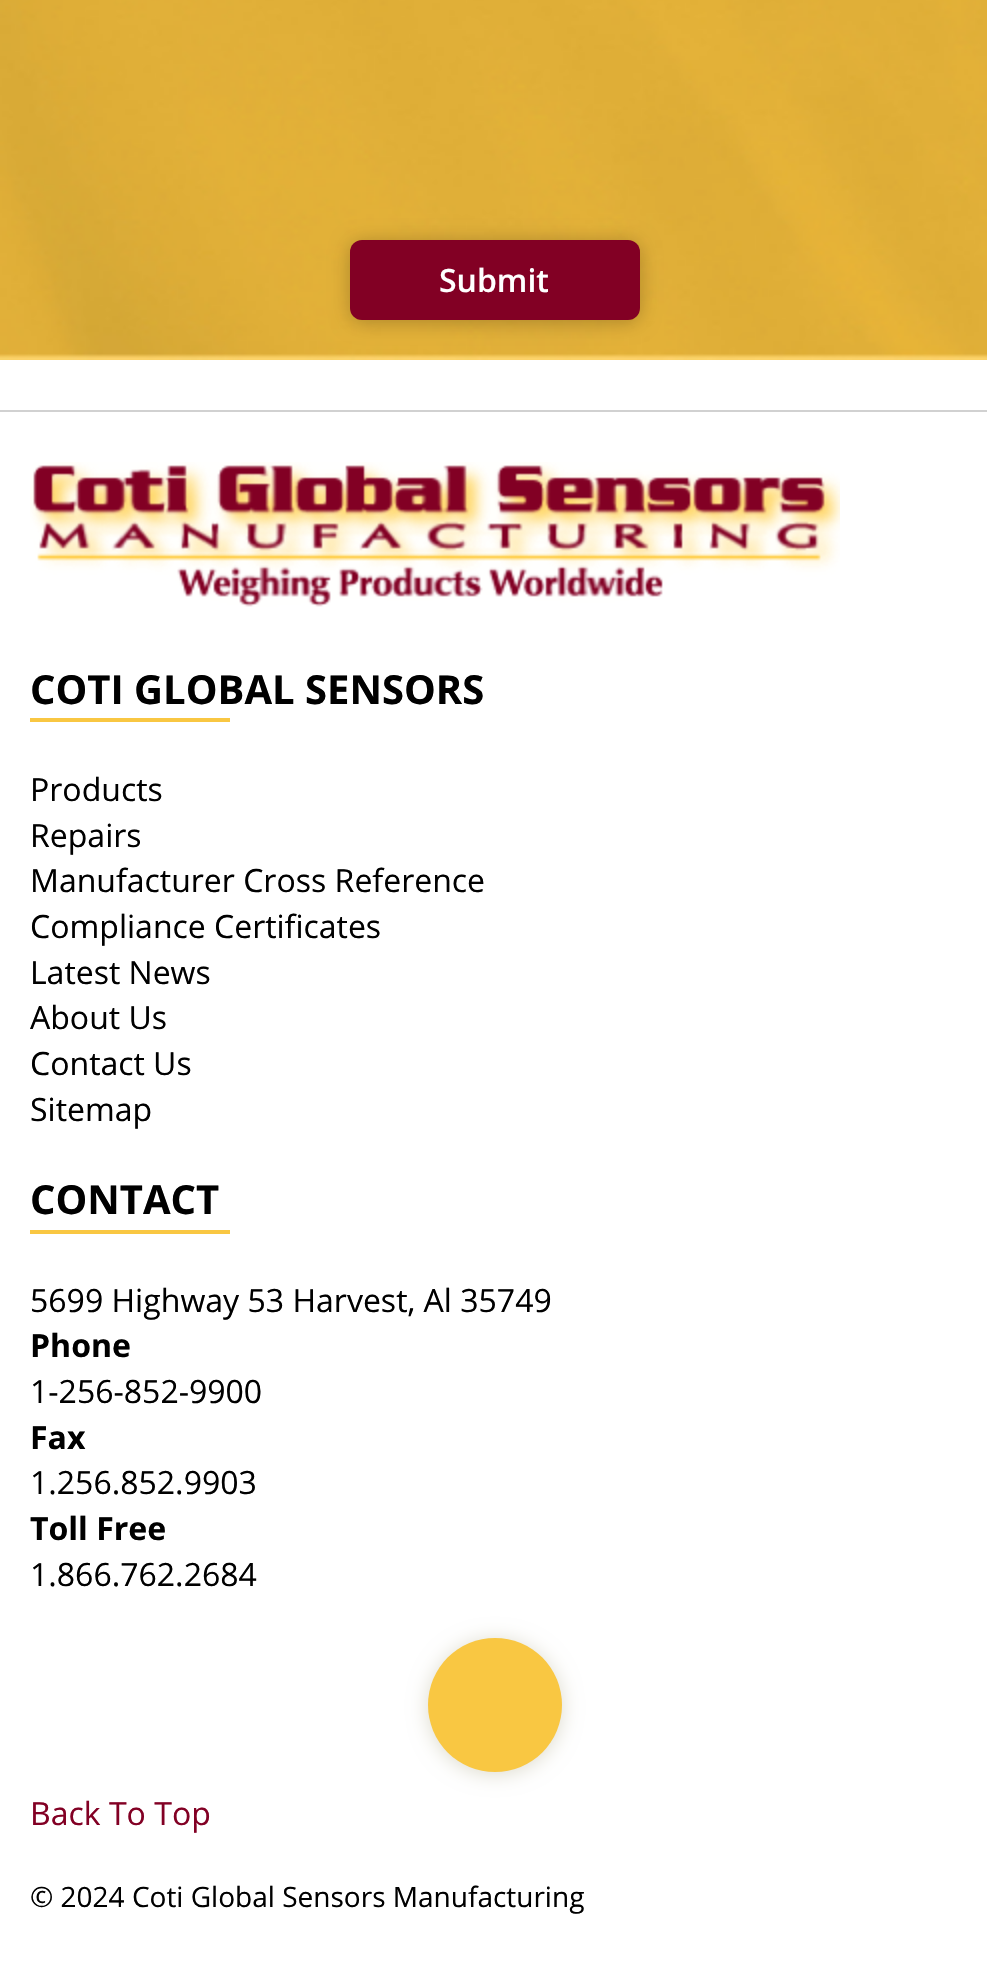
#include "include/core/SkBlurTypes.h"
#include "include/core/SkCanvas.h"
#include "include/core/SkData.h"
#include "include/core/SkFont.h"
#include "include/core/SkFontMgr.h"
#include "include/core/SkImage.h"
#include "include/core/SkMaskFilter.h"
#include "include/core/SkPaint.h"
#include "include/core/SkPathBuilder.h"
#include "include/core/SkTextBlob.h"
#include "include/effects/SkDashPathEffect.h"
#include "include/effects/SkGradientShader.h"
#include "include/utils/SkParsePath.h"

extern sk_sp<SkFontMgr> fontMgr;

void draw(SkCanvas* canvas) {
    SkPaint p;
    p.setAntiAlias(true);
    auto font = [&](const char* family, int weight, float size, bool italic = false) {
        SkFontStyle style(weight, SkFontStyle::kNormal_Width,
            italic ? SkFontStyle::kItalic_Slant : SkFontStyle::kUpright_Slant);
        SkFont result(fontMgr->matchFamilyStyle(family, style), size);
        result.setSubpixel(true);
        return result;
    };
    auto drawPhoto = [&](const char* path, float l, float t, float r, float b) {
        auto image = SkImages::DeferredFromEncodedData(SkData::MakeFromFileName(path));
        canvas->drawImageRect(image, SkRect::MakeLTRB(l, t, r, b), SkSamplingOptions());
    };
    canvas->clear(0xFFFFFFFF);
    drawPhoto("media/1.png", 0, 0, 987, 360);
    p.setColor(0x40000000);
    p.setMaskFilter(SkMaskFilter::MakeBlur(kNormal_SkBlurStyle, 10));
    canvas->drawRoundRect(SkRect::MakeLTRB(350, 242, 640, 322), 12, 12, p);
    p.setMaskFilter(nullptr);
    p.setColor(0xFF820024);
    canvas->drawRoundRect(SkRect::MakeLTRB(350, 240, 640, 320), 12, 12, p);
    auto font1 = font("Open Sans", 600, 32);
    p.setColor(0xFFFFFFFF);
    canvas->drawString("Submit", 439, 292, font1, p);
    p.setColor(0xFFD1D1D1);
    canvas->drawRect(SkRect::MakeLTRB(0, 410, 987, 412), p);
    drawPhoto("media/2.png", 30, 462, 840, 607);
    auto font2 = font("Open Sans", 700, 40);
    p.setColor(0xFF000000);
    canvas->drawString("COTI GLOBAL SENSORS", 30, 704, font2, p);
    p.setColor(0xFFF9C742);
    canvas->drawRect(SkRect::MakeLTRB(30, 718, 230, 722), p);
    auto font3 = font("Open Sans", 400, 32);
    p.setColor(0xFF000000);
    {
        const struct { const char* s; float x, y; } items[] = {
            {"Products", 30, 801},
            {"Repairs", 30, 847},
            {"Manufacturer Cross Reference", 30, 892},
            {"Compliance Certificates", 30, 938},
            {"Latest News", 30, 984},
            {"About Us", 30, 1029},
            {"Contact Us", 30, 1075},
            {"Sitemap", 30, 1121},
        };
        for (auto [s, x, y] : items) {
            canvas->drawString(s, x, y, font3, p);
        }
    }
    canvas->drawString("CONTACT", 30, 1214, font2, p);
    p.setColor(0xFFF9C742);
    canvas->drawRect(SkRect::MakeLTRB(30, 1230, 230, 1234), p);
    p.setColor(0xFF000000);
    canvas->drawString("5699 Highway 53 Harvest, Al 35749", 30, 1312, font3, p);
    auto font4 = font("Open Sans", 700, 32);
    canvas->drawString("Phone", 30, 1357, font4, p);
    canvas->drawString("1-256-852-9900", 30, 1403, font3, p);
    canvas->drawString("Fax", 30, 1449, font4, p);
    canvas->drawString("1.256.852.9903", 30, 1494, font3, p);
    canvas->drawString("Toll Free", 30, 1540, font4, p);
    canvas->drawString("1.866.762.2684", 30, 1586, font3, p);
    p.setColor(0xFFDDDBCD);
    p.setMaskFilter(SkMaskFilter::MakeBlur(kNormal_SkBlurStyle, 10));
    canvas->drawRoundRect(SkRect::MakeLTRB(428, 1640, 562, 1774), 67, 67, p);
    p.setMaskFilter(nullptr);
    p.setColor(0xFFF9C742);
    canvas->drawCircle(495, 1705, 67, p);
    p.setColor(0xFF820024);
    canvas->drawString("Back To Top", 30, 1825, font3, p);
    auto font5 = font("Open Sans", 400, 28);
    p.setColor(0xFF000000);
    canvas->drawString("© 2024 Coti Global Sensors Manufacturing", 30, 1907, font5, p);
}
